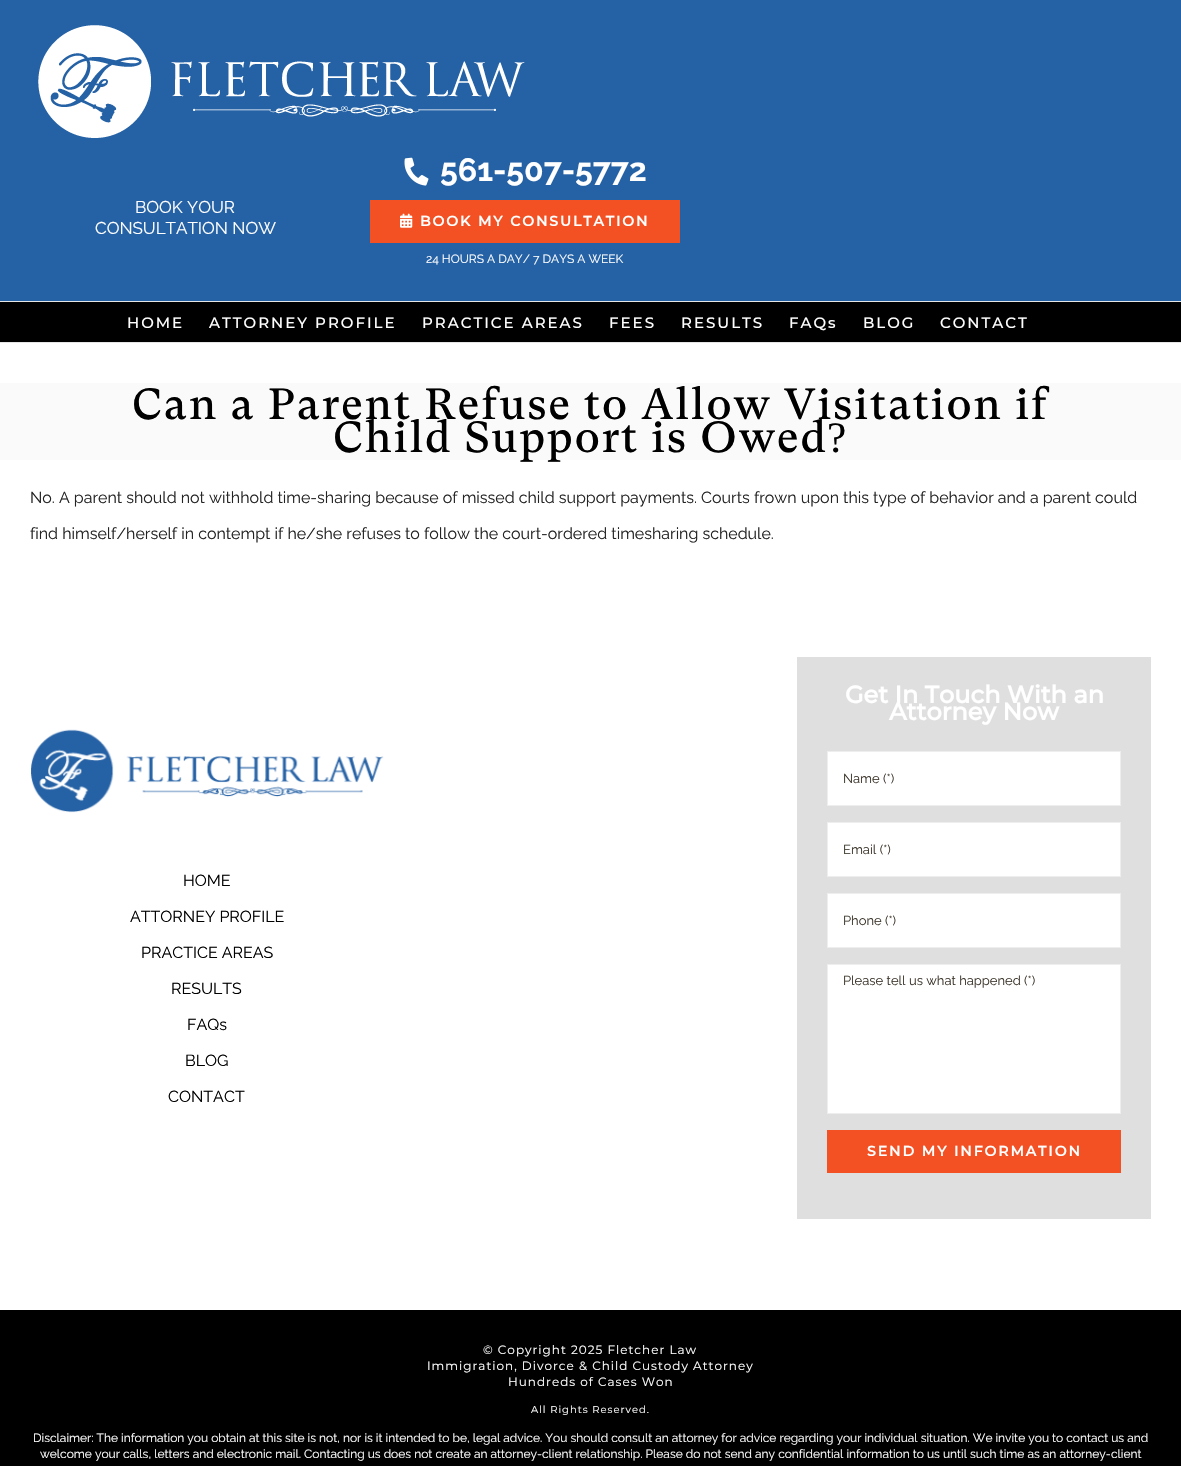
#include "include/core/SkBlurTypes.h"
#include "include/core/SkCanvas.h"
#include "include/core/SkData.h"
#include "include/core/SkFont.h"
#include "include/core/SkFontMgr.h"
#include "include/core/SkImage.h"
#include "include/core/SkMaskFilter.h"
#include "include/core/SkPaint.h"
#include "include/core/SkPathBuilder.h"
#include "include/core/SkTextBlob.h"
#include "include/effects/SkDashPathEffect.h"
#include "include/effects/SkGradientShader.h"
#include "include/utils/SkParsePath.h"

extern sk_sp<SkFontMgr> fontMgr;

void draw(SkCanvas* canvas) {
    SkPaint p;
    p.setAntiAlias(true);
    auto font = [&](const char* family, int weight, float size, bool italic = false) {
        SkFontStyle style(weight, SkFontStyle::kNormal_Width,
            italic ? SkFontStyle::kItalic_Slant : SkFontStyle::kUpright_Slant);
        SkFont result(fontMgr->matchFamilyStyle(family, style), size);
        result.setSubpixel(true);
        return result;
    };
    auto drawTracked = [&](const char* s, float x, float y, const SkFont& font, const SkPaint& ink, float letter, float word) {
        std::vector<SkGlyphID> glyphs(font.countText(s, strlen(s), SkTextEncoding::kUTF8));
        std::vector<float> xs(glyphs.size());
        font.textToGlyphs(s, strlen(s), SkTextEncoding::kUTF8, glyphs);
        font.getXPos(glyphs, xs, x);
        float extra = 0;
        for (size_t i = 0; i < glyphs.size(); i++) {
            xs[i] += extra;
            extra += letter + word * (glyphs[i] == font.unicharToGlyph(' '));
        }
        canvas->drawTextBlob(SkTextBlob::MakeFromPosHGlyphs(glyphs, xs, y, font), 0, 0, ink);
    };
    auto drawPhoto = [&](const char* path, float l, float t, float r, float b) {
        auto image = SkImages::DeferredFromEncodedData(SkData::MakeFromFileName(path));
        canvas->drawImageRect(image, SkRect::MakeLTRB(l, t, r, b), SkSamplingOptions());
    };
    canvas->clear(0xFFFFFFFF);
    p.setColor(0xFF2561A5);
    canvas->drawRect(SkRect::MakeLTRB(0, 0, 1181, 301), p);
    p.setColor(0xFFE5E5E5);
    canvas->drawRect(SkRect::MakeLTRB(0, 301, 1181, 302), p);
    drawPhoto("media/1.png", 38, 25, 525, 138);
    auto font1 = font("Raleway", 400, 17);
    p.setColor(0xFFFFFFFF);
    canvas->drawString("BOOK YOUR", 135, 213, font1, p);
    canvas->drawString("CONSULTATION NOW", 95, 234, font1, p);
    drawPhoto("media/2.png", 404, 157, 429, 186);
    auto font2 = font("Raleway", 700, 32);
    canvas->drawString("561-507-5772", 440, 181, font2, p);
    p.setColor(0xFFF35123);
    canvas->drawRect(SkRect::MakeLTRB(370, 200, 680, 243), p);
    drawPhoto("media/3.png", 400, 213, 413, 228);
    auto font3 = font("Montserrat", 700, 14);
    p.setColor(0xFFFFFFFF);
    drawTracked("BOOK MY CONSULTATION", 420, 226, font3, p, 2, 0);
    auto font4 = font("Raleway", 400, 12);
    canvas->drawString("24 HOURS A DAY/ 7 DAYS A WEEK", 426, 263, font4, p);
    p.setColor(0xFF000000);
    canvas->drawRect(SkRect::MakeLTRB(0, 302, 1181, 342), p);
    p.setColor(0xFFE5E5E5);
    canvas->drawRect(SkRect::MakeLTRB(0, 342, 1181, 343), p);
    auto font5 = font("Montserrat", 500, 15);
    p.setColor(0xFFFFFFFF);
    {
        const struct { const char* s; float x, y; } items[] = {
            {"HOME", 127, 328},
            {"ATTORNEY PROFILE", 209, 328},
            {"PRACTICE AREAS", 422, 328},
            {"FEES", 609, 328},
            {"RESULTS", 681, 328},
            {"FAQs", 789, 328},
            {"BLOG", 863, 328},
            {"CONTACT", 940, 328},
        };
        for (auto [s, x, y] : items) {
            drawTracked(s, x, y, font5, p, 2, 0);
        }
    }
    p.setColor(0xFFFAFAFA);
    canvas->drawRect(SkRect::MakeLTRB(0, 383, 1181, 460), p);
    auto font6 = font("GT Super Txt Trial", 400, 43.4f);
    p.setColor(0xFF000000);
    drawTracked("Can a Parent Refuse to Allow Visitation if", 132, 419, font6, p, 2, 0);
    drawTracked("Child Support is Owed", 333, 452, font6, p, 2, 0);
    auto font7 = font("Liberation Serif", 400, 43.4f);
    drawTracked("?", 827, 452, font7, p, 2, 0);
    auto font8 = font("Raleway", 400, 16);
    p.setColor(0xFF232323);
    canvas->drawString("No. A parent should not withhold time-sharing because of missed child support payments. Courts frown upon this type of behavior and a parent could", 30, 503, font8, p);
    canvas->drawString("find himself/herself in contempt if he/she refuses to follow the court-ordered timesharing schedule.", 30, 539, font8, p);
    drawPhoto("media/4.png", 31, 729, 384, 813);
    p.setColor(0xFF000000);
    {
        const struct { const char* s; float x, y; } items[] = {
            {"HOME", 183, 886},
            {"ATTORNEY PROFILE", 130, 922},
            {"PRACTICE AREAS", 141, 958},
            {"RESULTS", 171, 994},
            {"FAQs", 187, 1030},
            {"BLOG", 185, 1066},
            {"CONTACT", 168, 1102},
        };
        for (auto [s, x, y] : items) {
            canvas->drawString(s, x, y, font8, p);
        }
    }
    p.setColor(0xFFDFDFDF);
    canvas->drawRect(SkRect::MakeLTRB(797, 657, 1151, 1219), p);
    auto font9 = font("Montserrat", 700, 24);
    p.setColor(0xFFFFFFFF);
    canvas->drawString("Get In Touch With an", 845, 703, font9, p);
    canvas->drawString("Attorney Now", 889, 720, font9, p);
    canvas->drawRect(SkRect::MakeLTRB(827.5f, 751.5f, 1120.5f, 805.5f), p);
    p.setStyle(SkPaint::kStroke_Style);
    p.setStrokeWidth(1);
    p.setColor(0xFFEEEEEE);
    canvas->drawRect(SkRect::MakeLTRB(827.5f, 751.5f, 1120.5f, 805.5f), p);
    auto font10 = font("Raleway", 400, 13);
    p.setStyle(SkPaint::kFill_Style);
    p.setColor(0xFF3E372D);
    canvas->drawString("Name (*)", 843, 783, font10, p);
    p.setColor(0xFFFFFFFF);
    canvas->drawRect(SkRect::MakeLTRB(827.5f, 822.5f, 1120.5f, 876.5f), p);
    p.setStyle(SkPaint::kStroke_Style);
    p.setColor(0xFFEEEEEE);
    canvas->drawRect(SkRect::MakeLTRB(827.5f, 822.5f, 1120.5f, 876.5f), p);
    p.setStyle(SkPaint::kFill_Style);
    p.setColor(0xFF3E372D);
    canvas->drawString("Email (*)", 843, 854, font10, p);
    p.setColor(0xFFFFFFFF);
    canvas->drawRect(SkRect::MakeLTRB(827.5f, 893.5f, 1120.5f, 947.5f), p);
    p.setStyle(SkPaint::kStroke_Style);
    p.setColor(0xFFEEEEEE);
    canvas->drawRect(SkRect::MakeLTRB(827.5f, 893.5f, 1120.5f, 947.5f), p);
    p.setStyle(SkPaint::kFill_Style);
    p.setColor(0xFF3E372D);
    canvas->drawString("Phone (*)", 843, 925, font10, p);
    p.setColor(0xFFFFFFFF);
    canvas->drawRect(SkRect::MakeLTRB(827.5f, 964.5f, 1120.5f, 1113.5f), p);
    p.setStyle(SkPaint::kStroke_Style);
    p.setColor(0xFFEEEEEE);
    canvas->drawRect(SkRect::MakeLTRB(827.5f, 964.5f, 1120.5f, 1113.5f), p);
    p.setStyle(SkPaint::kFill_Style);
    p.setColor(0xFF3E372D);
    canvas->drawString("Please tell us what happened (*)", 843, 985, font10, p);
    p.setColor(0xFFF35123);
    canvas->drawRect(SkRect::MakeLTRB(827, 1130, 1121, 1173), p);
    p.setColor(0xFFFFFFFF);
    drawTracked("SEND MY INFORMATION", 867, 1156, font3, p, 2, 0);
    p.setColor(0xFF000000);
    canvas->drawRect(SkRect::MakeLTRB(0, 1310, 1181, 1466), p);
    auto font11 = font("Montserrat", 400, 12);
    p.setColor(0xFFFFFFFF);
    {
        const struct { const char* s; float x, y; } items[] = {
            {"© Copyright 2025 Fletcher Law", 483, 1354},
            {"Immigration, Divorce & Child Custody Attorney", 427, 1370},
            {"Hundreds of Cases Won", 508, 1386},
        };
        for (auto [s, x, y] : items) {
            drawTracked(s, x, y, font11, p, 1, 0);
        }
    }
    auto font12 = font("Montserrat", 400, 10);
    drawTracked("All Rights Reserved.", 531, 1413, font12, p, 1, 0);
    canvas->drawString("Disclaimer: The information you obtain at this site is not, nor is it intended to be, legal advice. You should consult an attorney for advice regarding your individual situation. We invite you to contact us and", 33, 1442, font4, p);
    canvas->drawString("welcome your calls, letters and electronic mail. Contacting us does not create an attorney-client relationship. Please do not send any confidential information to us until such time as an attorney-client", 40, 1458, font4, p);
}
